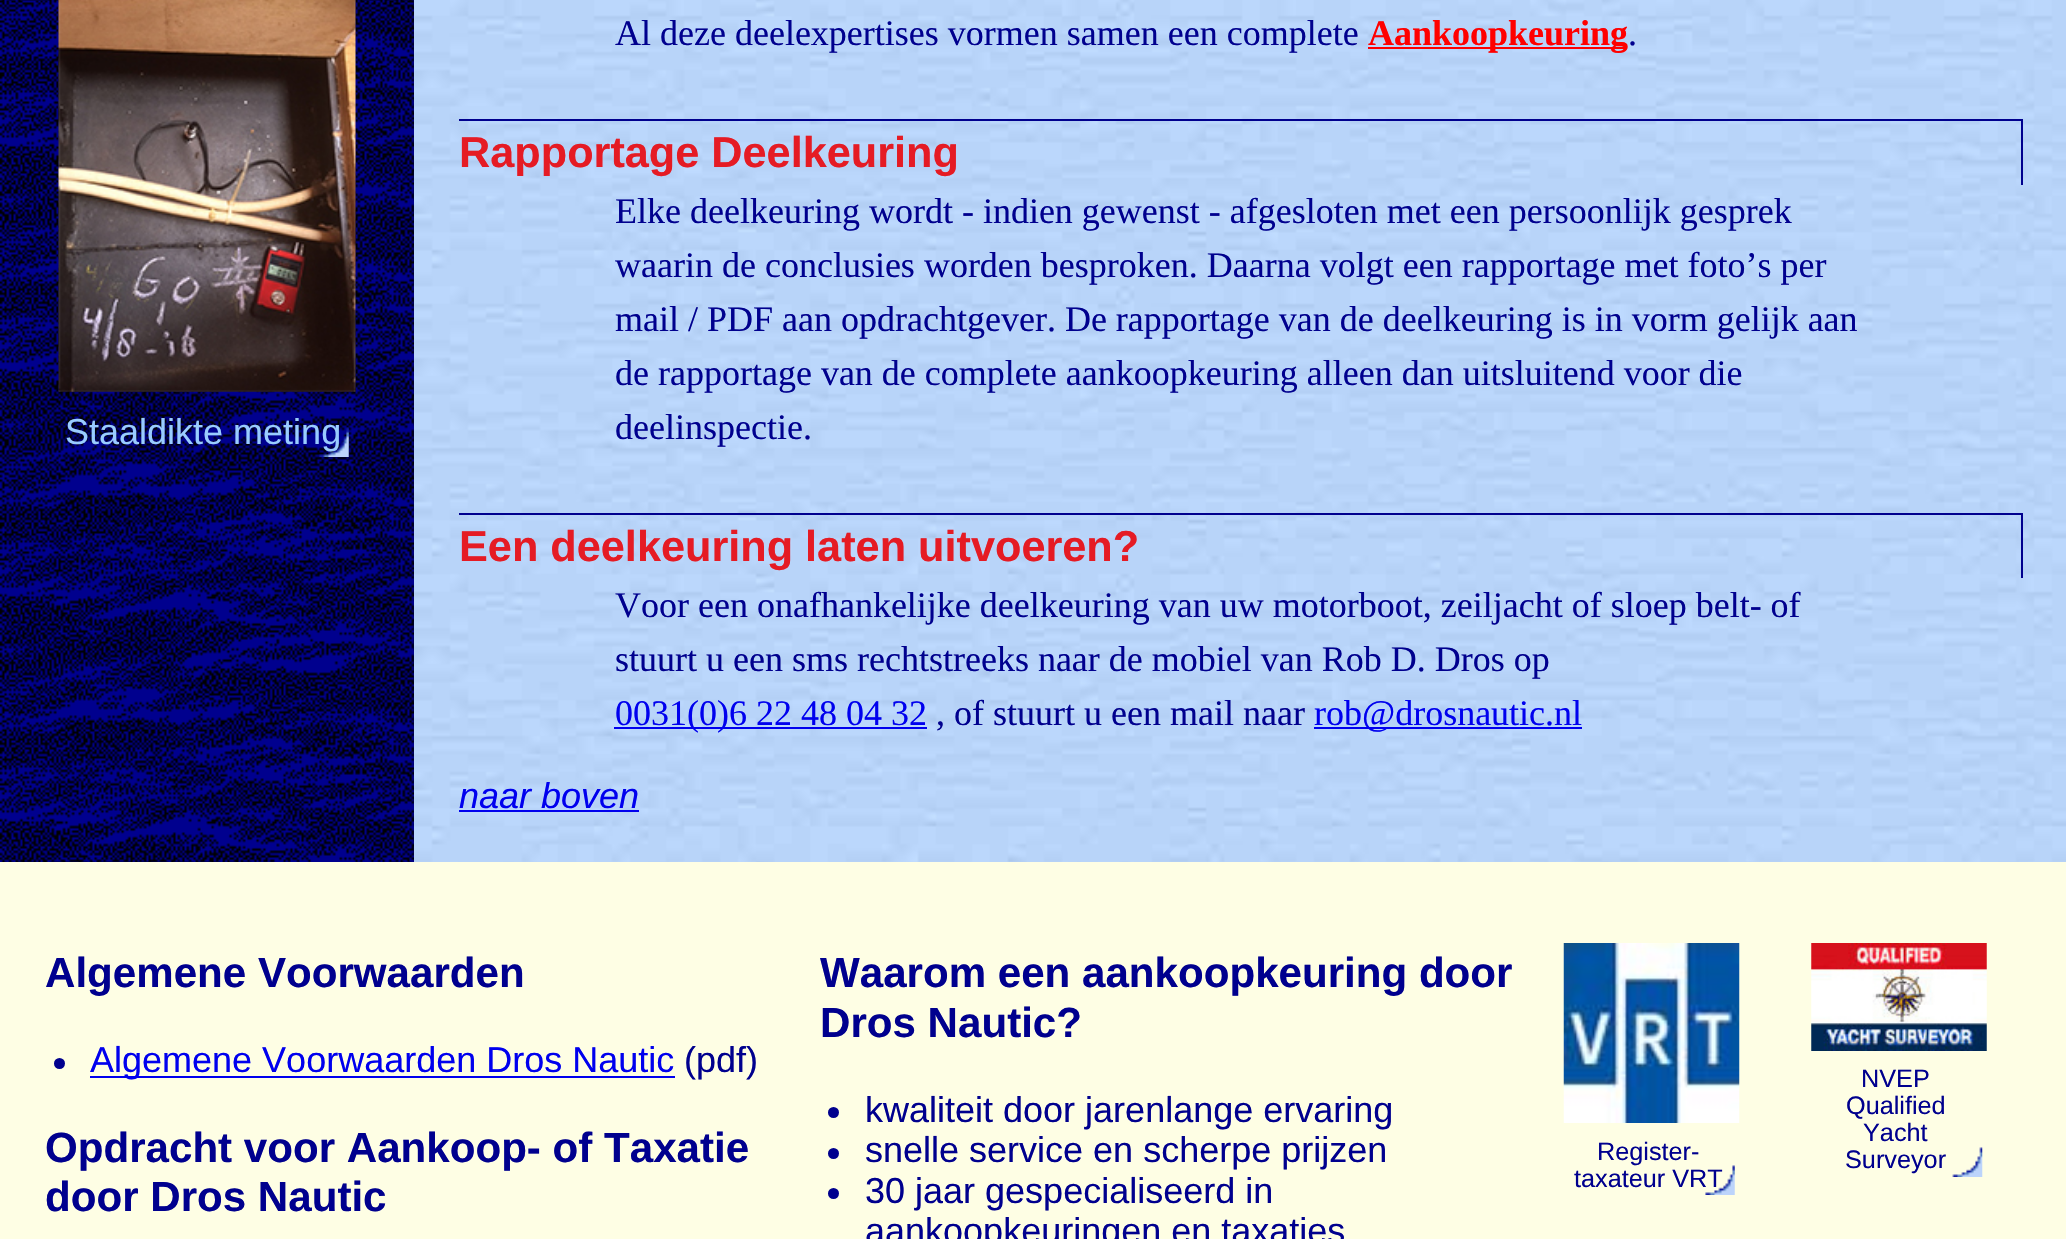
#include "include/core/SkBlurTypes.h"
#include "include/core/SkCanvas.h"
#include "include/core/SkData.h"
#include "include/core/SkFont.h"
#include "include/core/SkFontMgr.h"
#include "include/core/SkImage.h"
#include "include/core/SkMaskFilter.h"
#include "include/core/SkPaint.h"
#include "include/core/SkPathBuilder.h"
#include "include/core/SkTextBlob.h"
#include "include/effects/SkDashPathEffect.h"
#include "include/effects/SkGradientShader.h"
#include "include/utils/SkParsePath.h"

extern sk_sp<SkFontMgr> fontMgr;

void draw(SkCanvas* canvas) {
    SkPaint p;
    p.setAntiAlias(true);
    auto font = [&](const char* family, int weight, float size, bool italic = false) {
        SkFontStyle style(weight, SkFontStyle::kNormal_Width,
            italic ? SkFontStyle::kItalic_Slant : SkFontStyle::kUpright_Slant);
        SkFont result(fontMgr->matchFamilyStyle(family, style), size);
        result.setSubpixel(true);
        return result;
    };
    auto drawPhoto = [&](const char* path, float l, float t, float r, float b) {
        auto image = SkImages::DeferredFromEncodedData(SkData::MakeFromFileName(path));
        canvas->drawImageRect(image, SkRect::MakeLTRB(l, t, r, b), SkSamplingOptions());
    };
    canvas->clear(0xFFFFFFFF);
    drawPhoto("media/1.png", 414, 0, 2066, 862);
    drawPhoto("media/2.png", 0, 0, 414, 862);
    drawPhoto("media/3.png", 58, 0, 356, 392);
    drawPhoto("media/4.png", 319, 427, 349, 457);
    auto font1 = font("Liberation Sans", 400, 36);
    p.setColor(0xFF99CCFF);
    canvas->drawString("Staaldikte meting", 65, 444, font1, p);
    auto font2 = font("Liberation Serif", 400, 36);
    p.setColor(0xFF00008E);
    canvas->drawString("Al deze deelexpertises vormen samen een complete", 615, 45, font2, p);
    p.setColor(0xFFFF0000);
    canvas->drawRect(SkRect::MakeLTRB(1368, 47, 1627, 49), p);
    auto font3 = font("Liberation Serif", 700, 36);
    canvas->drawString("Aankoopkeuring", 1368, 45, font3, p);
    p.setColor(0xFF00008E);
    canvas->drawString(".", 1628, 45, font2, p);
    canvas->drawRect(SkRect::MakeLTRB(459, 119, 2023, 121), p);
    canvas->drawRect(SkRect::MakeLTRB(2021, 119, 2023, 185), p);
    auto font4 = font("Liberation Sans", 700, 43.25f);
    p.setColor(0xFFE51B24);
    canvas->drawString("Rapportage Deelkeuring", 459, 167, font4, p);
    p.setColor(0xFF00008E);
    {
        const struct { const char* s; float x, y; } items[] = {
            {"Elke deelkeuring wordt - indien gewenst - afgesloten met een persoonlijk gesprek", 615, 223},
            {"waarin de conclusies worden besproken. Daarna volgt een rapportage met foto’s per", 615, 277},
            {"mail / PDF aan opdrachtgever. De rapportage van de deelkeuring is in vorm gelijk aan", 615, 331},
            {"de rapportage van de complete aankoopkeuring alleen dan uitsluitend voor die", 615, 385},
            {"deelinspectie.", 615, 439},
        };
        for (auto [s, x, y] : items) {
            canvas->drawString(s, x, y, font2, p);
        }
    }
    canvas->drawRect(SkRect::MakeLTRB(459, 513, 2023, 515), p);
    canvas->drawRect(SkRect::MakeLTRB(2021, 513, 2023, 578), p);
    p.setColor(0xFFE51B24);
    canvas->drawString("Een deelkeuring laten uitvoeren?", 459, 561, font4, p);
    p.setColor(0xFF00008E);
    canvas->drawString("Voor een onafhankelijke deelkeuring van uw motorboot, zeiljacht of sloep belt- of", 615, 617, font2, p);
    canvas->drawString("stuurt u een sms rechtstreeks naar de mobiel van Rob D. Dros op", 615, 671, font2, p);
    p.setColor(0xFF0000EE);
    canvas->drawRect(SkRect::MakeLTRB(614, 727, 927, 729), p);
    canvas->drawString("0031(0)6 22 48 04 32", 615, 725, font2, p);
    p.setColor(0xFF00008E);
    canvas->drawString(", of stuurt u een mail naar", 936, 725, font2, p);
    p.setColor(0xFF0000EE);
    canvas->drawRect(SkRect::MakeLTRB(1314, 727, 1582, 729), p);
    canvas->drawString("rob@drosnautic.nl", 1314, 725, font2, p);
    auto font5 = font("Liberation Sans", 400, 36, true);
    canvas->drawString("naar boven", 459, 808, font5, p);
    canvas->drawRect(SkRect::MakeLTRB(459, 810, 639, 812), p);
    p.setColor(0xFFFEFEE4);
    canvas->drawRect(SkRect::MakeLTRB(0, 862, 2066, 1239), p);
    auto font6 = font("Liberation Sans", 700, 42.1f);
    p.setColor(0xFF00008E);
    canvas->drawString("Algemene Voorwaarden", 45, 987, font6, p);
    canvas->drawCircle(59.5f, 1063.5f, 5.5f, p);
    p.setColor(0xFF0000EE);
    canvas->drawRect(SkRect::MakeLTRB(90, 1076, 675, 1078), p);
    canvas->drawString("Algemene Voorwaarden Dros Nautic", 90, 1072, font1, p);
    p.setColor(0xFF00008E);
    canvas->drawString("(pdf)", 684, 1072, font1, p);
    {
        const struct { const char* s; float x, y; } items[] = {
            {"Opdracht voor Aankoop- of", 45, 1162},
            {"Taxatie", 604, 1162},
            {"door Dros Nautic", 45, 1211},
            {"Waarom een aankoopkeuring door", 820, 987},
            {"Dros Nautic?", 820, 1037},
        };
        for (auto [s, x, y] : items) {
            canvas->drawString(s, x, y, font6, p);
        }
    }
    canvas->drawCircle(833.5f, 1112.5f, 5.5f, p);
    canvas->drawString("kwaliteit door jarenlange ervaring", 865, 1122, font1, p);
    canvas->drawCircle(833.5f, 1153.5f, 5.5f, p);
    canvas->drawString("snelle service en scherpe prijzen", 865, 1162, font1, p);
    canvas->drawCircle(833.5f, 1193.5f, 5.5f, p);
    canvas->drawString("30 jaar gespecialiseerd in", 865, 1203, font1, p);
    canvas->drawString("aankoopkeuringen en taxaties", 865, 1243, font1, p);
    drawPhoto("media/5.png", 1563, 943, 1740, 1123);
    drawPhoto("media/6.png", 1705, 1165, 1735, 1195);
    auto font7 = font("Liberation Sans", 400, 25.25f);
    canvas->drawString("Register-", 1597, 1160, font7, p);
    canvas->drawString("taxateur VRT", 1574, 1187, font7, p);
    drawPhoto("media/7.png", 1811, 943, 1987, 1051);
    drawPhoto("media/8.png", 1952, 1147, 1983, 1177);
    {
        const struct { const char* s; float x, y; } items[] = {
            {"NVEP", 1861, 1087},
            {"Qualified", 1846, 1114},
            {"Yacht", 1863, 1141},
            {"Surveyor", 1845, 1168},
        };
        for (auto [s, x, y] : items) {
            canvas->drawString(s, x, y, font7, p);
        }
    }
}
